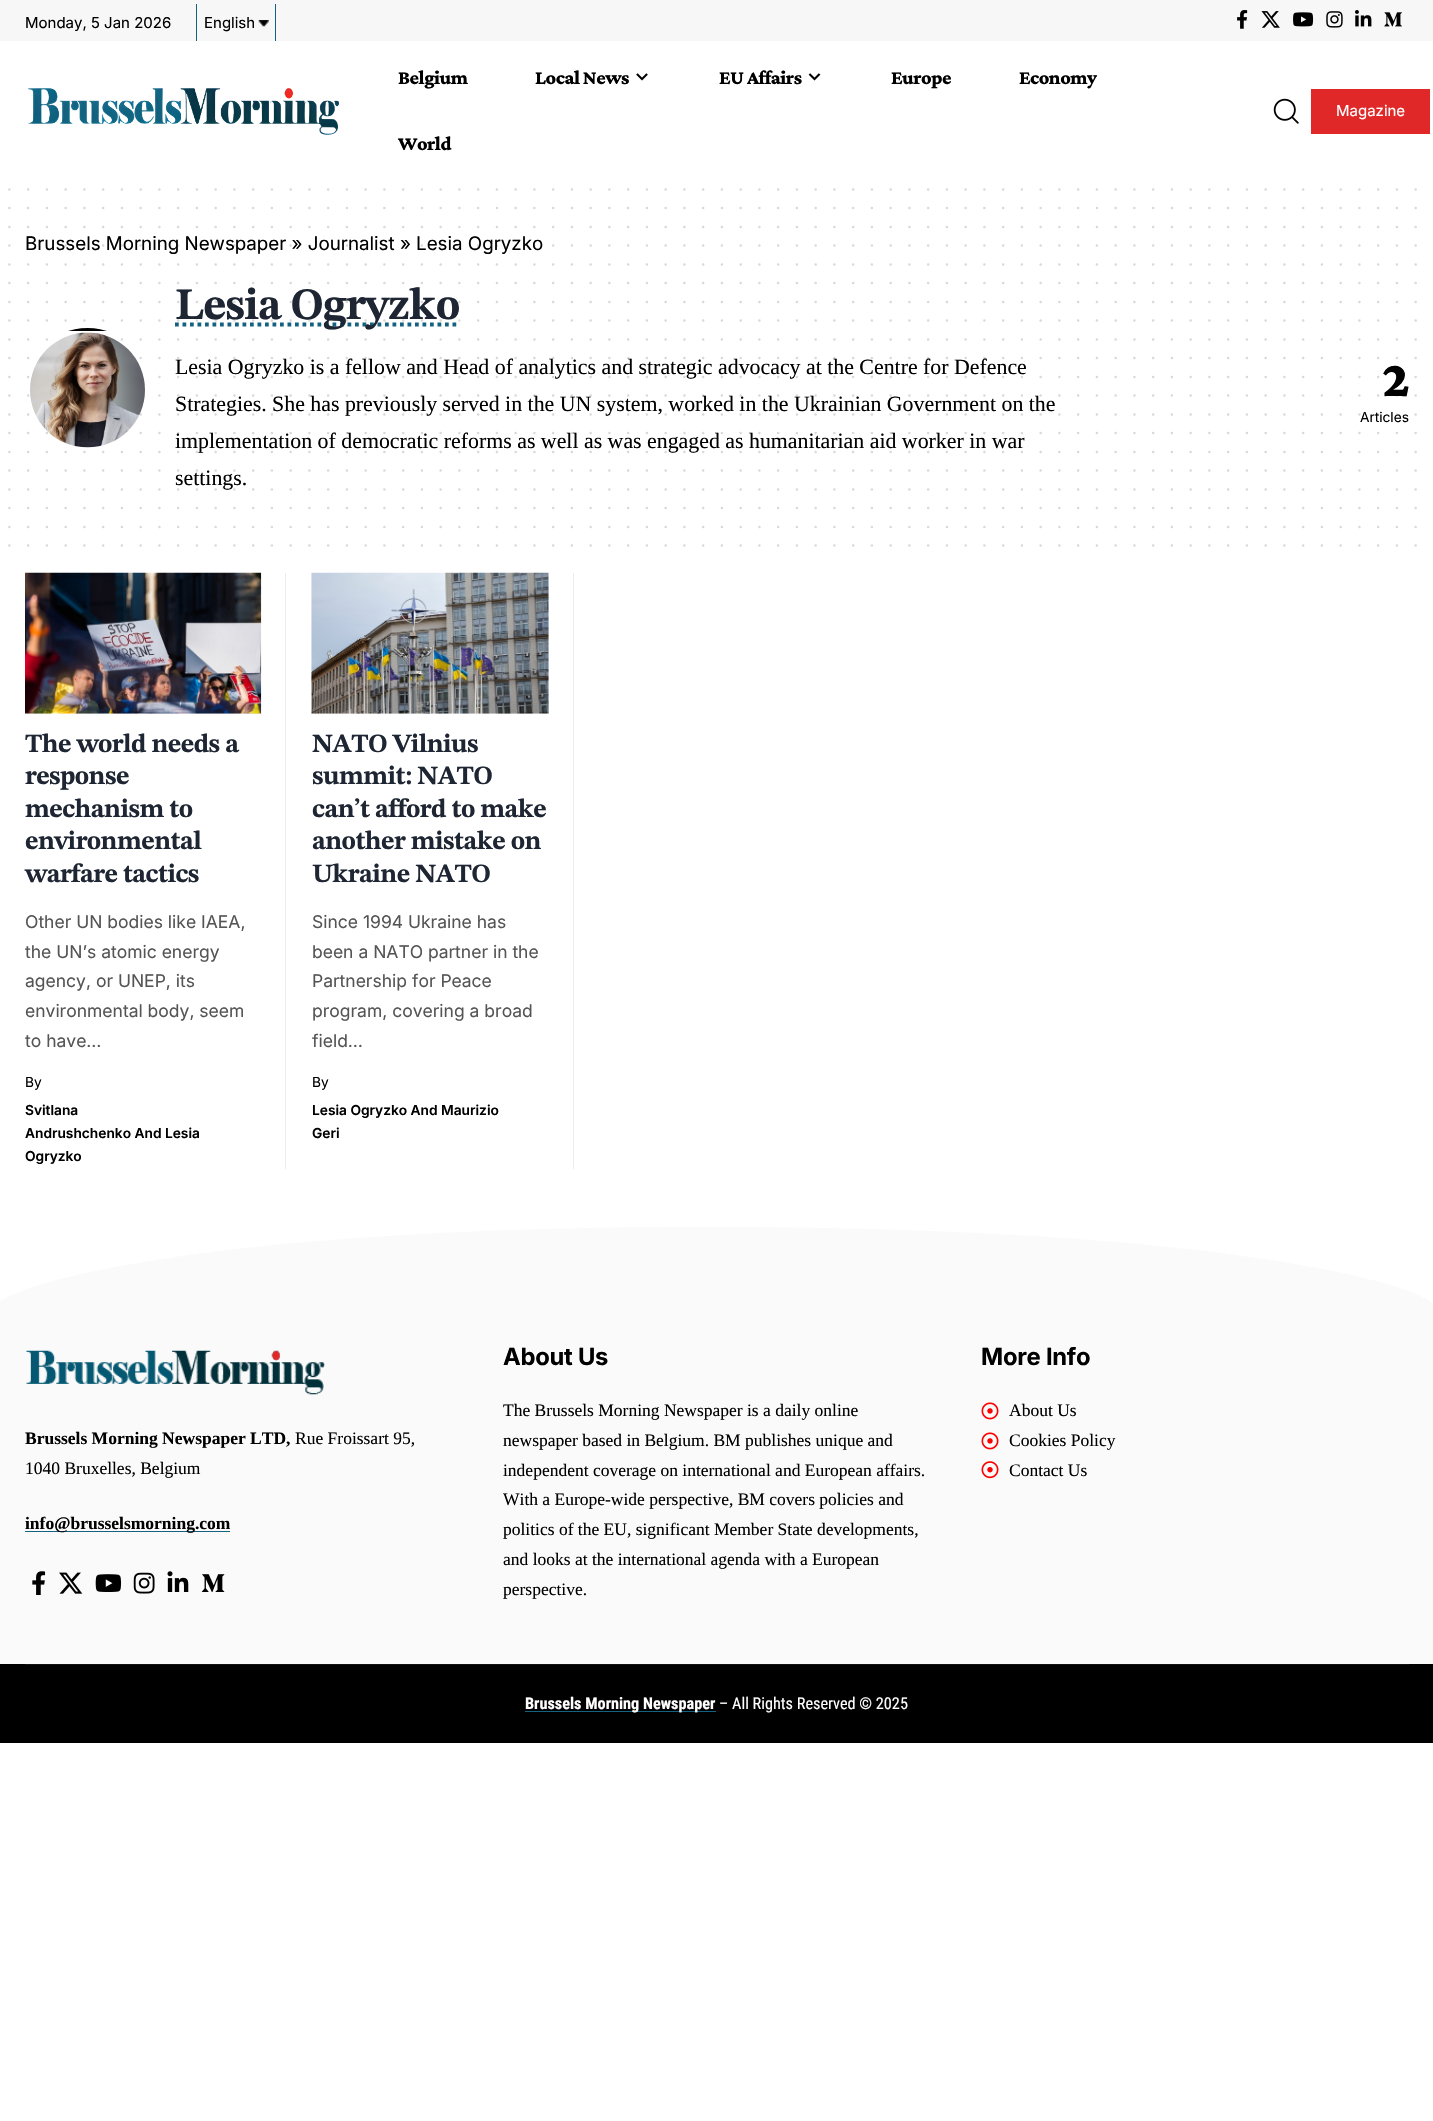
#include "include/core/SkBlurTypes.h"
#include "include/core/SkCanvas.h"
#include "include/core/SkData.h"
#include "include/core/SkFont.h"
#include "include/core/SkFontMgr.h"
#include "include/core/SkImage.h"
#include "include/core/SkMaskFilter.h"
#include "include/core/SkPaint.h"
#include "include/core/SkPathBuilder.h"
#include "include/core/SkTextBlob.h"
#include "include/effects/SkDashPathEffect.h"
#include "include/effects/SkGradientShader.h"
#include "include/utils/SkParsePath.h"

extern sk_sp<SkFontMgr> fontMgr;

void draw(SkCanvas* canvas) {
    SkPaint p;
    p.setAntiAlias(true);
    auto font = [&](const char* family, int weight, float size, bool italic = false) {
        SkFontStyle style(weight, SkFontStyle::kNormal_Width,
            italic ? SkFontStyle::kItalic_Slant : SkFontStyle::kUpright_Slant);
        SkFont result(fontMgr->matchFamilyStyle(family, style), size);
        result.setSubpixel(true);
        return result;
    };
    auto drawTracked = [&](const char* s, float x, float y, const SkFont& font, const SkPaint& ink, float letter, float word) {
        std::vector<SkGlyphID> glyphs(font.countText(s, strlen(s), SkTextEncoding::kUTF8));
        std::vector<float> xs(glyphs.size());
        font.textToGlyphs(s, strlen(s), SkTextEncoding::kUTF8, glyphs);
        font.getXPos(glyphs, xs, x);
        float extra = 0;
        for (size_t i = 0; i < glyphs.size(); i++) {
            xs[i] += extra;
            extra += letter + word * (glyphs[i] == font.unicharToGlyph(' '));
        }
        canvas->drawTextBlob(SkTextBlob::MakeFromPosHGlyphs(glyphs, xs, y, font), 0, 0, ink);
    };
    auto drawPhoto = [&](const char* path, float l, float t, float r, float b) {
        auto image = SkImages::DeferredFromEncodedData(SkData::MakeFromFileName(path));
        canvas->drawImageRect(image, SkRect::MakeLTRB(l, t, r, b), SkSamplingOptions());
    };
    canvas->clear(0xFFFFFFFF);
    p.setColor(0xFFF7F7F7);
    canvas->drawRect(SkRect::MakeLTRB(0, 0, 1433, 41), p);
    auto font1 = font("Inter", 400, 15);
    p.setColor(0xFF000000);
    canvas->drawString("Monday, 5 Jan 2026", 25, 28, font1, p);
    p.setColor(0xFF136281);
    canvas->drawRect(SkRect::MakeLTRB(275, 4, 276, 41), p);
    canvas->drawRect(SkRect::MakeLTRB(196, 4, 197, 41), p);
    p.setColor(0xFF000000);
    canvas->drawString("English", 204, 28, font1, p);
    drawPhoto("media/1.png", 258, 20, 269, 27);
    drawPhoto("media/2.png", 1237, 10, 1248, 29);
    drawPhoto("media/3.png", 1261, 11, 1280, 28);
    drawPhoto("media/4.png", 1293, 12, 1314, 27);
    drawPhoto("media/5.png", 1326, 11, 1343, 28);
    drawPhoto("media/6.png", 1355, 10, 1372, 27);
    drawPhoto("media/7.png", 1384, 12, 1402, 27);
    drawPhoto("media/8.png", 28, 88, 339, 135);
    auto font2 = font("Crimson Pro", 800, 20);
    drawTracked("Belgium", 398, 84, font2, p, -0.5f, 0);
    drawTracked("Local News", 535, 84, font2, p, -0.5f, 0);
    drawPhoto("media/9.png", 636, 73, 648, 81);
    drawTracked("EU Affairs", 719, 84, font2, p, -0.5f, 0);
    drawPhoto("media/10.png", 808, 73, 821, 81);
    {
        const struct { const char* s; float x, y; } items[] = {
            {"Europe", 891, 84},
            {"Economy", 1019, 84},
            {"World", 398, 150},
        };
        for (auto [s, x, y] : items) {
            drawTracked(s, x, y, font2, p, -0.5f, 0);
        }
    }
    drawPhoto("media/11.png", 1273, 98, 1299, 124);
    p.setColor(0xFFE12828);
    canvas->drawRect(SkRect::MakeLTRB(1311, 89, 1430, 134), p);
    p.setColor(0xFFFFFFFF);
    canvas->drawString("Magazine", 1336, 116, font1, p);
    p.setStyle(SkPaint::kStroke_Style);
    p.setStrokeWidth(2.5f);
    p.setStrokeCap(SkPaint::kRound_Cap);
    p.setColor(0xFFD9D9D9);
    p.setPathEffect(SkDashPathEffect::Make({{0, 18.75f}}, 0));
    canvas->drawPath(SkPathBuilder().moveTo(9.4f, 189.4f).lineTo(1415.9f, 189.4f).detach(), p);
    p.setPathEffect(nullptr);
    p.setPathEffect(SkDashPathEffect::Make({{0, 18.75f}}, 0));
    canvas->drawPath(SkPathBuilder().moveTo(9.4f, 208.1f).lineTo(1415.9f, 208.1f).detach(), p);
    p.setPathEffect(nullptr);
    p.setPathEffect(SkDashPathEffect::Make({{0, 18.75f}}, 0));
    canvas->drawPath(SkPathBuilder().moveTo(9.4f, 226.9f).lineTo(1415.9f, 226.9f).detach(), p);
    p.setPathEffect(nullptr);
    auto font3 = font("Inter", 400, 18.75f);
    p.setStyle(SkPaint::kFill_Style);
    p.setColor(0xFF000000);
    canvas->drawString("Brussels Morning Newspaper » Journalist » Lesia Ogryzko", 25, 250, font3, p);
    p.setStyle(SkPaint::kStroke_Style);
    p.setColor(0x26000000);
    p.setPathEffect(SkDashPathEffect::Make({{0, 18.75f}}, 0));
    canvas->drawPath(SkPathBuilder().moveTo(9.4f, 245.6f).lineTo(1415.9f, 245.6f).detach(), p);
    p.setPathEffect(nullptr);
    p.setColor(0xFFD9D9D9);
    p.setPathEffect(SkDashPathEffect::Make({{0, 18.75f}}, 0));
    canvas->drawPath(SkPathBuilder().moveTo(9.4f, 264.4f).lineTo(1415.9f, 264.4f).detach(), p);
    p.setPathEffect(nullptr);
    p.setPathEffect(SkDashPathEffect::Make({{0, 18.75f}}, 0));
    canvas->drawPath(SkPathBuilder().moveTo(9.4f, 283.1f).lineTo(1415.9f, 283.1f).detach(), p);
    p.setPathEffect(nullptr);
    p.setStrokeWidth(3.8f);
    p.setStrokeCap(SkPaint::kButt_Cap);
    p.setColor(0xFF136281);
    p.setPathEffect(SkDashPathEffect::Make({{3.75f, 3.75f}}, 0));
    canvas->drawPath(SkPathBuilder().moveTo(175, 324.5f).lineTo(460, 324.5f).detach(), p);
    p.setPathEffect(nullptr);
    auto font4 = font("STIX Two Text", 700, 45);
    p.setStyle(SkPaint::kFill_Style);
    p.setColor(0xFF1E2633);
    drawTracked("Lesia Ogryzko", 175, 319, font4, p, -1, 0);
    p.setStyle(SkPaint::kStroke_Style);
    p.setStrokeWidth(2.5f);
    p.setStrokeCap(SkPaint::kRound_Cap);
    p.setColor(0x26000000);
    p.setPathEffect(SkDashPathEffect::Make({{0, 18.75f}}, 0));
    canvas->drawPath(SkPathBuilder().moveTo(9.4f, 301.9f).lineTo(1415.9f, 301.9f).detach(), p);
    p.setPathEffect(nullptr);
    p.setPathEffect(SkDashPathEffect::Make({{0, 18.75f}}, 0));
    canvas->drawPath(SkPathBuilder().moveTo(9.4f, 320.6f).lineTo(1415.9f, 320.6f).detach(), p);
    p.setPathEffect(nullptr);
    p.setColor(0xFFD9D9D9);
    p.setPathEffect(SkDashPathEffect::Make({{0, 18.75f}}, 0));
    canvas->drawPath(SkPathBuilder().moveTo(9.4f, 339.4f).lineTo(1415.9f, 339.4f).detach(), p);
    p.setPathEffect(nullptr);
    auto font5 = font("Liberation Serif", 400, 21.85f);
    p.setStyle(SkPaint::kFill_Style);
    p.setColor(0xFF000000);
    canvas->drawString("Lesia Ogryzko is a fellow and Head of analytics and strategic advocacy at the Centre for Defence", 175, 374, font5, p);
    p.setStyle(SkPaint::kStroke_Style);
    p.setColor(0x26000000);
    p.setPathEffect(SkDashPathEffect::Make({{0, 18.75f}}, 0));
    canvas->drawPath(SkPathBuilder().moveTo(9.4f, 358.1f).lineTo(1415.9f, 358.1f).detach(), p);
    p.setPathEffect(nullptr);
    auto font6 = font("Crimson Pro", 900, 52);
    p.setStyle(SkPaint::kFill_Style);
    p.setColor(0xFF000000);
    drawTracked("2", 1382, 396, font6, p, -1, 0);
    p.setStyle(SkPaint::kStroke_Style);
    p.setColor(0x26000000);
    p.setPathEffect(SkDashPathEffect::Make({{0, 18.75f}}, 0));
    canvas->drawPath(SkPathBuilder().moveTo(9.4f, 376.9f).lineTo(1415.9f, 376.9f).detach(), p);
    p.setPathEffect(nullptr);
    p.setStyle(SkPaint::kFill_Style);
    p.setColor(0xFF000000);
    canvas->drawString("Strategies. She has previously served in the UN system, worked in the Ukrainian Government on the", 175, 411, font5, p);
    p.setStyle(SkPaint::kStroke_Style);
    p.setColor(0x26000000);
    p.setPathEffect(SkDashPathEffect::Make({{0, 18.75f}}, 0));
    canvas->drawPath(SkPathBuilder().moveTo(9.4f, 395.6f).lineTo(1415.9f, 395.6f).detach(), p);
    p.setPathEffect(nullptr);
    auto font7 = font("Inter", 400, 13.75f);
    p.setStyle(SkPaint::kFill_Style);
    p.setColor(0xFF000000);
    canvas->drawString("Articles", 1360, 422, font7, p);
    p.setStyle(SkPaint::kStroke_Style);
    p.setColor(0x26000000);
    p.setPathEffect(SkDashPathEffect::Make({{0, 18.75f}}, 0));
    canvas->drawPath(SkPathBuilder().moveTo(9.4f, 414.4f).lineTo(1415.9f, 414.4f).detach(), p);
    p.setPathEffect(nullptr);
    p.setStyle(SkPaint::kFill_Style);
    p.setColor(0xFF000000);
    canvas->drawString("implementation of democratic reforms as well as was engaged as humanitarian aid worker in war", 175, 448, font5, p);
    p.setStyle(SkPaint::kStroke_Style);
    p.setColor(0x26000000);
    p.setPathEffect(SkDashPathEffect::Make({{0, 18.75f}}, 0));
    canvas->drawPath(SkPathBuilder().moveTo(9.4f, 433.1f).lineTo(1415.9f, 433.1f).detach(), p);
    p.setPathEffect(nullptr);
    p.setColor(0xFFD9D9D9);
    p.setPathEffect(SkDashPathEffect::Make({{0, 18.75f}}, 0));
    canvas->drawPath(SkPathBuilder().moveTo(9.4f, 451.9f).lineTo(1415.9f, 451.9f).detach(), p);
    p.setPathEffect(nullptr);
    p.setStyle(SkPaint::kFill_Style);
    p.setColor(0xFF000000);
    canvas->drawString("settings.", 175, 485, font5, p);
    p.setStyle(SkPaint::kStroke_Style);
    p.setColor(0xFFD9D9D9);
    p.setPathEffect(SkDashPathEffect::Make({{0, 18.75f}}, 0));
    canvas->drawPath(SkPathBuilder().moveTo(9.4f, 470.6f).lineTo(1415.9f, 470.6f).detach(), p);
    p.setPathEffect(nullptr);
    p.setPathEffect(SkDashPathEffect::Make({{0, 18.75f}}, 0));
    canvas->drawPath(SkPathBuilder().moveTo(9.4f, 489.4f).lineTo(1415.9f, 489.4f).detach(), p);
    p.setPathEffect(nullptr);
    p.setPathEffect(SkDashPathEffect::Make({{0, 18.75f}}, 0));
    canvas->drawPath(SkPathBuilder().moveTo(9.4f, 508.1f).lineTo(1415.9f, 508.1f).detach(), p);
    p.setPathEffect(nullptr);
    p.setPathEffect(SkDashPathEffect::Make({{0, 18.75f}}, 0));
    canvas->drawPath(SkPathBuilder().moveTo(9.4f, 526.9f).lineTo(1415.9f, 526.9f).detach(), p);
    p.setPathEffect(nullptr);
    p.setPathEffect(SkDashPathEffect::Make({{0, 18.75f}}, 0));
    canvas->drawPath(SkPathBuilder().moveTo(9.4f, 545.6f).lineTo(1415.9f, 545.6f).detach(), p);
    p.setPathEffect(nullptr);
    canvas->save();
    canvas->clipPath(SkPathBuilder().moveTo(87.5f, 328).cubicTo(122, 328, 150, 356, 150, 390.5f).cubicTo(150, 425, 122, 453, 87.5f, 453).cubicTo(53, 453, 25, 425, 25, 390.5f).cubicTo(25, 356, 53, 328, 87.5f, 328).close().detach(), true);
    p.setStyle(SkPaint::kFill_Style);
    p.setColor(0xFF000000);
    canvas->drawRect(SkRect::MakeLTRB(68, 328, 107, 331), p);
    canvas->restore();
    drawPhoto("media/12.png", 30, 332, 145, 448);
    drawPhoto("media/13.png", 25, 572, 262, 714);
    p.setColor(0xFFEDEDED);
    canvas->drawRect(SkRect::MakeLTRB(285, 573, 286, 1169), p);
    auto font8 = font("STIX Two Text", 700, 26.25f);
    p.setColor(0xFF1E2633);
    {
        const struct { const char* s; float x, y; } items[] = {
            {"The world needs a", 25, 752},
            {"response", 25, 784},
            {"mechanism to", 25, 817},
            {"environmental", 25, 849},
            {"warfare tactics", 25, 882},
        };
        for (auto [s, x, y] : items) {
            drawTracked(s, x, y, font8, p, -0.6f, 0);
        }
    }
    auto font9 = font("Inter", 400, 17.5f);
    p.setColor(0xFF555555);
    {
        const struct { const char* s; float x, y; } items[] = {
            {"Other UN bodies like IAEA,", 25, 928},
            {"the UN’s atomic energy", 25, 958},
            {"agency, or UNEP, its", 25, 987},
            {"environmental body, seem", 25, 1017},
            {"to have…", 25, 1047},
        };
        for (auto [s, x, y] : items) {
            canvas->drawString(s, x, y, font9, p);
        }
    }
    p.setColor(0xFF000000);
    canvas->drawString("By", 25, 1087, font7, p);
    auto font10 = font("Inter", 600, 13.75f);
    {
        const struct { const char* s; float x, y; } items[] = {
            {"Svitlana", 25, 1115},
            {"Andrushchenko And Lesia", 25, 1138},
            {"Ogryzko", 25, 1161},
        };
        for (auto [s, x, y] : items) {
            canvas->drawString(s, x, y, font10, p);
        }
    }
    drawPhoto("media/14.png", 311, 572, 549, 714);
    p.setColor(0xFFEDEDED);
    canvas->drawRect(SkRect::MakeLTRB(573, 573, 574, 1169), p);
    p.setColor(0xFF1E2633);
    {
        const struct { const char* s; float x, y; } items[] = {
            {"NATO Vilnius", 312, 752},
            {"summit: NATO", 312, 784},
            {"can’t afford to make", 312, 817},
            {"another mistake on", 312, 849},
            {"Ukraine NATO", 312, 882},
        };
        for (auto [s, x, y] : items) {
            drawTracked(s, x, y, font8, p, -0.6f, 0);
        }
    }
    p.setColor(0xFF555555);
    {
        const struct { const char* s; float x, y; } items[] = {
            {"Since 1994 Ukraine has", 312, 928},
            {"been a NATO partner in the", 312, 958},
            {"Partnership for Peace", 312, 987},
            {"program, covering a broad", 312, 1017},
            {"field…", 312, 1047},
        };
        for (auto [s, x, y] : items) {
            canvas->drawString(s, x, y, font9, p);
        }
    }
    p.setColor(0xFF000000);
    canvas->drawString("By", 312, 1087, font7, p);
    canvas->drawString("Lesia Ogryzko And Maurizio", 312, 1115, font10, p);
    canvas->drawString("Geri", 312, 1138, font10, p);
    p.setColor(0xFFFAFAFA);
    canvas->drawRect(SkRect::MakeLTRB(0, 1227, 1433, 1664), p);
    p.setColor(0xFFFFFFFF);
    canvas->drawPath(SkPathBuilder().moveTo(716, 1227).cubicTo(1252, 1228, 1433, 1290, 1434, 1306).lineTo(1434, 1225).lineTo(-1, 1225).lineTo(-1, 1305).cubicTo(-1, 1290, 180, 1226, 716, 1227).close().detach(), p);
    drawPhoto("media/15.png", 26, 1350, 325, 1395);
    auto font11 = font("Liberation Serif", 700, 17.5f);
    p.setColor(0xFF000000);
    canvas->drawString("Brussels Morning Newspaper LTD,", 25, 1444, font11, p);
    auto font12 = font("Liberation Serif", 400, 17.5f);
    canvas->drawString("Rue Froissart 95,", 295, 1444, font12, p);
    canvas->drawString("1040 Bruxelles, Belgium", 25, 1474, font12, p);
    p.setColor(0xFF136281);
    canvas->drawRect(SkRect::MakeLTRB(25, 1531, 230, 1532), p);
    p.setColor(0xFF000000);
    canvas->drawString("info@brusselsmorning.com", 25, 1529, font11, p);
    drawPhoto("media/16.png", 32, 1571, 46, 1595);
    drawPhoto("media/17.png", 59, 1572, 83, 1594);
    drawPhoto("media/18.png", 95, 1574, 122, 1592);
    drawPhoto("media/19.png", 133, 1572, 155, 1594);
    drawPhoto("media/20.png", 167, 1571, 189, 1592);
    drawPhoto("media/21.png", 201, 1574, 225, 1592);
    auto font13 = font("Inter", 700, 23.75f);
    drawTracked("About Us", 503, 1365, font13, p, -0.25f, 0);
    {
        const struct { const char* s; float x, y; } items[] = {
            {"The Brussels Morning Newspaper is a daily online", 503, 1416},
            {"newspaper based in Belgium. BM publishes unique and", 503, 1446},
            {"independent coverage on international and European affairs.", 503, 1476},
            {"With a Europe-wide perspective, BM covers policies and", 503, 1505},
            {"politics of the EU, significant Member State developments,", 503, 1535},
            {"and looks at the international agenda with a European", 503, 1565},
            {"perspective.", 503, 1595},
        };
        for (auto [s, x, y] : items) {
            canvas->drawString(s, x, y, font12, p);
        }
    }
    drawTracked("More Info", 981, 1365, font13, p, -0.25f, 0);
    drawPhoto("media/22.png", 981, 1402, 999, 1420);
    canvas->drawString("About Us", 1009, 1416, font12, p);
    drawPhoto("media/22.png", 981, 1432, 999, 1450);
    canvas->drawString("Cookies Policy", 1009, 1446, font12, p);
    drawPhoto("media/23.png", 981, 1461, 999, 1479);
    canvas->drawString("Contact Us", 1009, 1476, font12, p);
    {
        const struct { float l, t, r, b; SkColor color; } items[] = {
            {0, 1664, 1433, 1743, 0xFF000000},
            {25, 1664, 1409, 1665, 0xFF121212},
            {525, 1711, 716, 1712, 0xFF136281},
        };
        for (auto [l, t, r, b, color] : items) {
            p.setColor(color);
            canvas->drawRect(SkRect::MakeLTRB(l, t, r, b), p);
        }
    }
    auto font14 = font("Roboto Condensed", 700, 16.25f);
    p.setColor(0xFFFFFFFF);
    canvas->drawString("Brussels Morning Newspaper", 525, 1709, font14, p);
    auto font15 = font("Roboto Condensed", 400, 16.25f);
    canvas->drawString("– All Rights Reserved © 2025", 719, 1709, font15, p);
}
